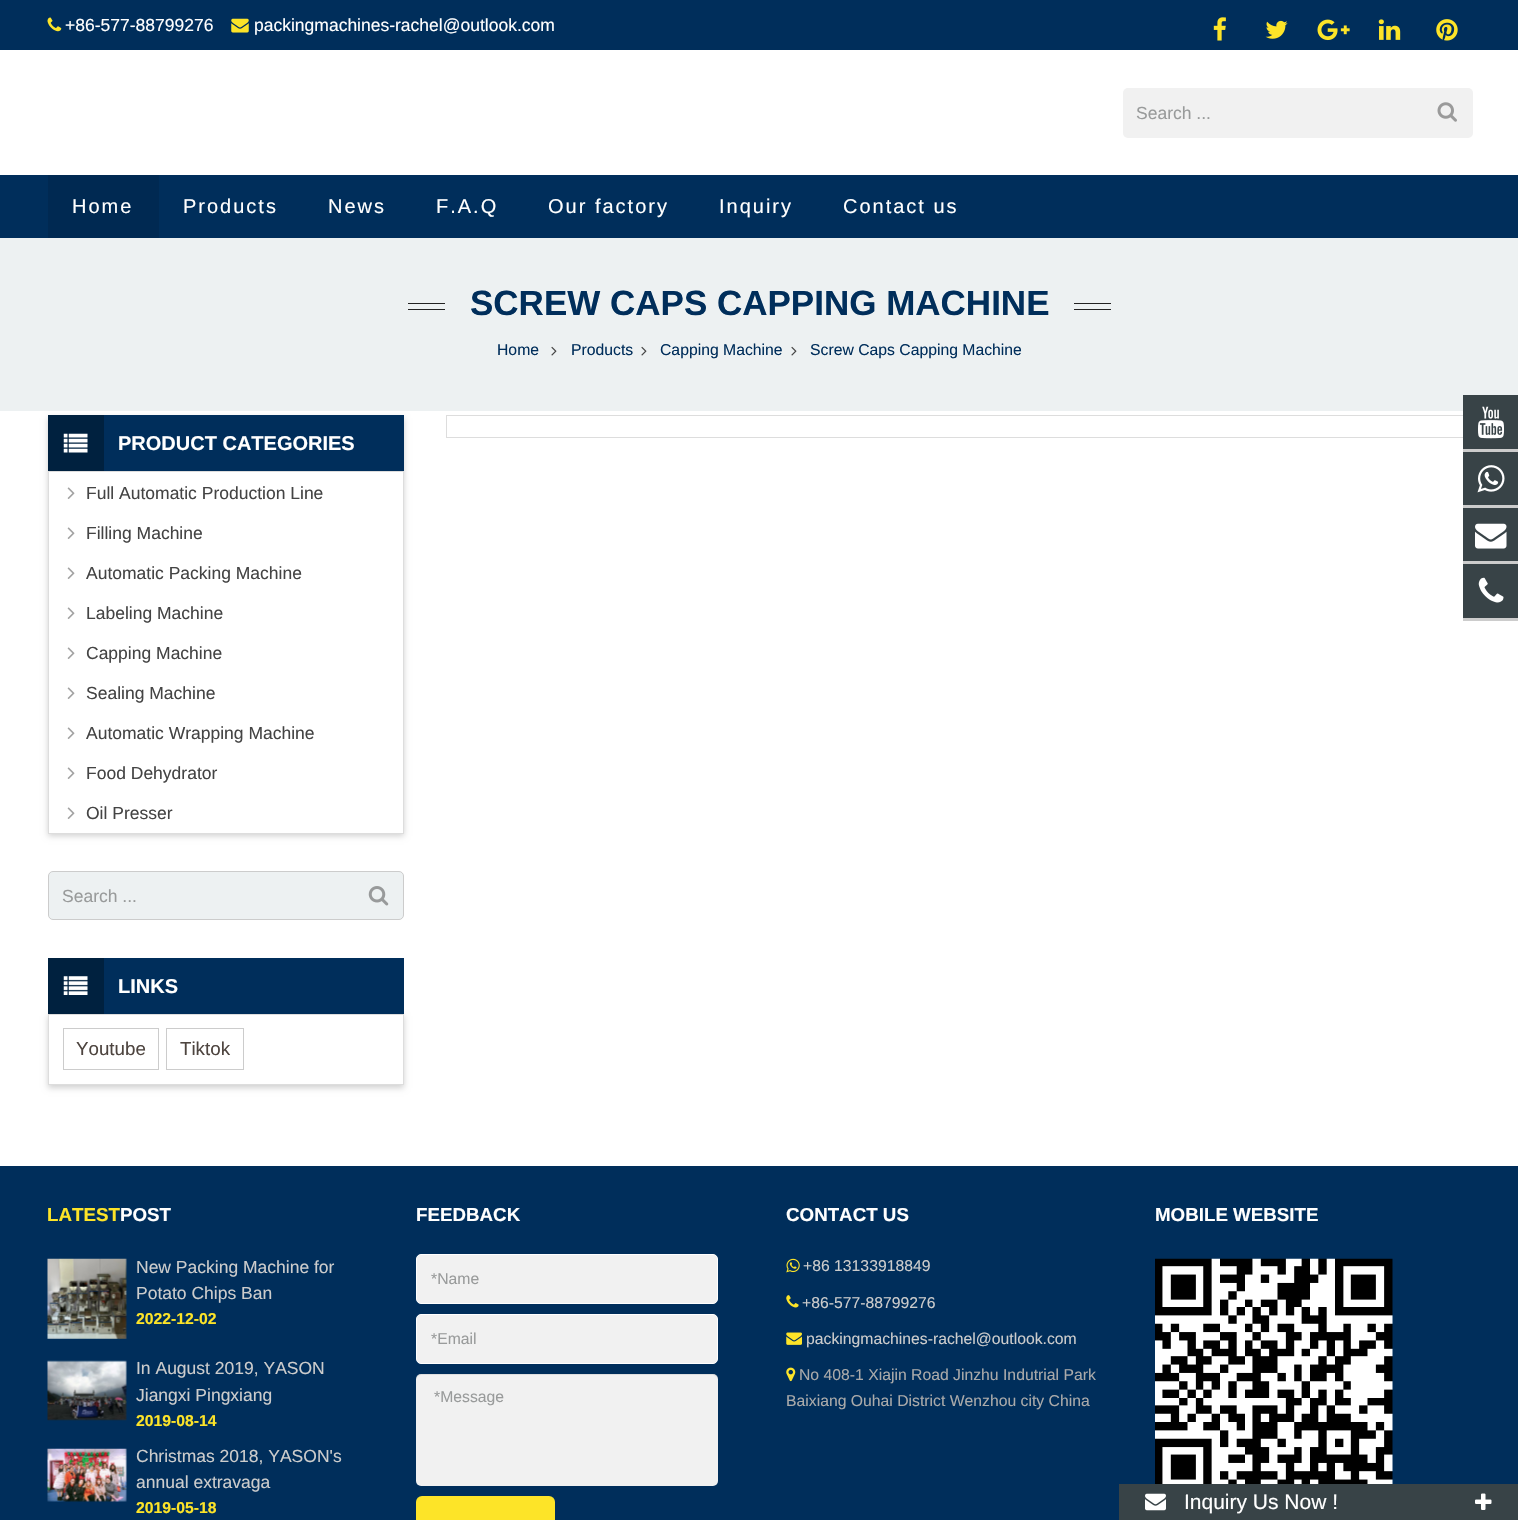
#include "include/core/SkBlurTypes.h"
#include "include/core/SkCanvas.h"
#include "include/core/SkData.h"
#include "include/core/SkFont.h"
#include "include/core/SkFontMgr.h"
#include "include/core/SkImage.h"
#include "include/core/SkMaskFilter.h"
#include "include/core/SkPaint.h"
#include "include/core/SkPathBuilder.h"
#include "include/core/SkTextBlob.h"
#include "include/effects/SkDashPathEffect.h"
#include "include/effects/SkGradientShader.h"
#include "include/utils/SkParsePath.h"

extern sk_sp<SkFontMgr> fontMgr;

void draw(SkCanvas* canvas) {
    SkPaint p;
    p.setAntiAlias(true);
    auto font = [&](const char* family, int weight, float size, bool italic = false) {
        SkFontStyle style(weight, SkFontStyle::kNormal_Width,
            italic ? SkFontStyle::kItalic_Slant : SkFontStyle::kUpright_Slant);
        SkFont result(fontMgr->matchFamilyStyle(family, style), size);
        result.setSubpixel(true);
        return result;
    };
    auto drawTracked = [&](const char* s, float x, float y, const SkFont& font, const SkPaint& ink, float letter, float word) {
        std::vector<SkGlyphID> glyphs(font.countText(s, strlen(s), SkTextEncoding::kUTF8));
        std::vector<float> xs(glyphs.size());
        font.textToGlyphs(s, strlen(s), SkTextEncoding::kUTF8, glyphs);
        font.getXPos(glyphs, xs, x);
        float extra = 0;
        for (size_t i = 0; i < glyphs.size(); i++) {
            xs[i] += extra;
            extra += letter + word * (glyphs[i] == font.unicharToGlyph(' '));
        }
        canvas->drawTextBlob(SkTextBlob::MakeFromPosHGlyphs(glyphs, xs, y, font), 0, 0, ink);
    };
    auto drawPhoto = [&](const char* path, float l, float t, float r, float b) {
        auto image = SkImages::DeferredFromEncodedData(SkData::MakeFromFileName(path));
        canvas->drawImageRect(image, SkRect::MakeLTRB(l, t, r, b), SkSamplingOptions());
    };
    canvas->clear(0xFFFFFFFF);
    p.setColor(0xFF002E5B);
    canvas->drawRect(SkRect::MakeLTRB(0, 0, 1518, 50), p);
    drawPhoto("media/1.png", 47, 17, 62, 32);
    auto font1 = font("Liberation Sans", 400, 17.5f);
    p.setColor(0xFFFFFFFF);
    canvas->drawString("+86-577-88799276", 65, 31, font1, p);
    drawPhoto("media/2.png", 231, 18, 249, 33);
    canvas->drawString("packingmachines-rachel@outlook.com", 254, 31, font1, p);
    drawPhoto("media/3.png", 1213, 17, 1226, 41);
    drawPhoto("media/4.png", 1265, 20, 1288, 39);
    drawPhoto("media/5.png", 1317, 19, 1350, 41);
    drawPhoto("media/6.png", 1378, 19, 1401, 40);
    drawPhoto("media/7.png", 1436, 19, 1458, 41);
    p.setColor(0xFFF1F1F1);
    canvas->drawRoundRect(SkRect::MakeLTRB(1123, 88, 1473, 138), 5, 5, p);
    p.setColor(0xFF999B9B);
    canvas->drawString("Search ...", 1136, 119, font1, p);
    drawPhoto("media/8.png", 1437, 102, 1457, 122);
    p.setColor(0xFF002E5B);
    canvas->drawRect(SkRect::MakeLTRB(0, 175, 1518, 238), p);
    p.setColor(0xFF002952);
    canvas->drawRect(SkRect::MakeLTRB(48, 175, 159, 238), p);
    auto font2 = font("Liberation Sans", 400, 20);
    p.setColor(0xFFFFFFFF);
    {
        const struct { const char* s; float x, y; } items[] = {
            {"Home", 72, 213},
            {"Products", 183, 213},
            {"News", 328, 213},
            {"F.A.Q", 436, 213},
            {"Our factory", 548, 213},
            {"Inquiry", 719, 213},
            {"Contact us", 843, 213},
        };
        for (auto [s, x, y] : items) {
            drawTracked(s, x, y, font2, p, 2, 0);
        }
    }
    canvas->save();
    canvas->clipPath(SkPathBuilder(SkPathFillType::kEvenOdd).moveTo(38, 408).lineTo(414, 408).lineTo(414, 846).lineTo(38, 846).close().moveTo(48, 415).lineTo(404, 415).lineTo(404, 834).lineTo(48, 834).close().detach(), true);
    p.setColor(0x2E000000);
    p.setMaskFilter(SkMaskFilter::MakeBlur(kNormal_SkBlurStyle, 3));
    canvas->drawRect(SkRect::MakeLTRB(48, 418, 404, 836), p);
    p.setMaskFilter(nullptr);
    canvas->restore();
    {
        const struct { float l, t, r, b; SkColor color; } items[] = {
            {0, 238, 1518, 411, 0xFFEDF1F2},
            {408, 303, 445, 304, 0xFF222222},
            {408, 309, 445, 310, 0xFF222222},
        };
        for (auto [l, t, r, b, color] : items) {
            p.setColor(color);
            canvas->drawRect(SkRect::MakeLTRB(l, t, r, b), p);
        }
    }
    auto font3 = font("Liberation Sans", 700, 35);
    p.setColor(0xFF002E5B);
    canvas->drawString("SCREW CAPS CAPPING MACHINE", 470, 315, font3, p);
    p.setColor(0xFF222222);
    canvas->drawRect(SkRect::MakeLTRB(1074, 303, 1111, 304), p);
    canvas->drawRect(SkRect::MakeLTRB(1074, 309, 1111, 310), p);
    auto font4 = font("Liberation Sans", 400, 15.75f);
    p.setColor(0xFF002E5B);
    canvas->drawString("Home", 497, 355, font4, p);
    drawPhoto("media/9.png", 551, 346, 557, 356);
    canvas->drawString("Products", 571, 355, font4, p);
    drawPhoto("media/9.png", 641, 346, 647, 356);
    canvas->drawString("Capping Machine", 660, 355, font4, p);
    drawPhoto("media/9.png", 791, 346, 797, 356);
    canvas->drawString("Screw Caps Capping Machine", 810, 355, font4, p);
    p.setStyle(SkPaint::kStroke_Style);
    p.setStrokeWidth(1);
    p.setColor(0xFFDDDDDD);
    canvas->drawRect(SkRect::MakeLTRB(446.5f, 415.5f, 1472.5f, 437.5f), p);
    p.setStyle(SkPaint::kFill_Style);
    p.setColor(0xFF002E5B);
    canvas->drawRect(SkRect::MakeLTRB(104, 415, 404, 471), p);
    p.setColor(0xFF00213F);
    canvas->drawRect(SkRect::MakeLTRB(48, 415, 104, 471), p);
    drawPhoto("media/10.png", 63, 433, 88, 453);
    auto font5 = font("Liberation Sans", 700, 20);
    p.setColor(0xFFFFFFFF);
    canvas->drawString("PRODUCT CATEGORIES", 118, 450, font5, p);
    p.setStyle(SkPaint::kStroke_Style);
    p.setColor(0xFFDDDDDD);
    canvas->drawRect(SkRect::MakeLTRB(48.5f, 471.5f, 403.5f, 833.5f), p);
    drawPhoto("media/11.png", 67, 487, 75, 499);
    p.setStyle(SkPaint::kFill_Style);
    p.setColor(0xFF444444);
    canvas->drawString("Full Automatic Production Line", 86, 499, font1, p);
    drawPhoto("media/11.png", 67, 527, 75, 539);
    canvas->drawString("Filling Machine", 86, 539, font1, p);
    drawPhoto("media/11.png", 67, 567, 75, 579);
    canvas->drawString("Automatic Packing Machine", 86, 579, font1, p);
    drawPhoto("media/11.png", 67, 607, 75, 619);
    canvas->drawString("Labeling Machine", 86, 619, font1, p);
    drawPhoto("media/11.png", 67, 647, 75, 659);
    canvas->drawString("Capping Machine", 86, 659, font1, p);
    drawPhoto("media/11.png", 67, 687, 75, 699);
    canvas->drawString("Sealing Machine", 86, 699, font1, p);
    drawPhoto("media/11.png", 67, 727, 75, 739);
    canvas->drawString("Automatic Wrapping Machine", 86, 739, font1, p);
    drawPhoto("media/11.png", 67, 767, 75, 779);
    canvas->drawString("Food Dehydrator", 86, 779, font1, p);
    drawPhoto("media/11.png", 67, 807, 75, 819);
    canvas->drawString("Oil Presser", 86, 819, font1, p);
    p.setColor(0xFFEDF1F2);
    canvas->drawRoundRect(SkRect::MakeLTRB(48.5f, 871.5f, 403.5f, 919.5f), 4.5f, 4.5f, p);
    p.setStyle(SkPaint::kStroke_Style);
    p.setColor(0xFFCCCCCC);
    canvas->drawRoundRect(SkRect::MakeLTRB(48.5f, 871.5f, 403.5f, 919.5f), 4.5f, 4.5f, p);
    p.setStyle(SkPaint::kFill_Style);
    p.setColor(0xFF999B9B);
    canvas->drawString("Search ...", 62, 902, font1, p);
    drawPhoto("media/12.png", 368, 886, 389, 906);
    canvas->save();
    canvas->clipPath(SkPathBuilder(SkPathFillType::kEvenOdd).moveTo(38, 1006).lineTo(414, 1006).lineTo(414, 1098).lineTo(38, 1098).close().moveTo(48, 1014).lineTo(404, 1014).lineTo(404, 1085).lineTo(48, 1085).close().detach(), true);
    p.setColor(0x2E000000);
    p.setMaskFilter(SkMaskFilter::MakeBlur(kNormal_SkBlurStyle, 3));
    canvas->drawRect(SkRect::MakeLTRB(48, 1016, 404, 1088), p);
    p.setMaskFilter(nullptr);
    canvas->restore();
    p.setColor(0xFF002E5B);
    canvas->drawRect(SkRect::MakeLTRB(104, 958, 404, 1014), p);
    p.setColor(0xFF00213F);
    canvas->drawRect(SkRect::MakeLTRB(48, 958, 104, 1014), p);
    drawPhoto("media/13.png", 63, 976, 88, 995);
    p.setColor(0xFFFFFFFF);
    canvas->drawString("LINKS", 118, 993, font5, p);
    p.setStyle(SkPaint::kStroke_Style);
    p.setColor(0xFFDDDDDD);
    canvas->drawRect(SkRect::MakeLTRB(48.5f, 1014.5f, 403.5f, 1084.5f), p);
    p.setColor(0xFFCCCCCC);
    canvas->drawRect(SkRect::MakeLTRB(63.5f, 1028.5f, 158.5f, 1069.5f), p);
    auto font6 = font("Liberation Sans", 400, 18.75f);
    p.setStyle(SkPaint::kFill_Style);
    p.setColor(0xFF4E4540);
    canvas->drawString("Youtube", 76, 1055, font6, p);
    p.setStyle(SkPaint::kStroke_Style);
    p.setColor(0xFFCCCCCC);
    canvas->drawRect(SkRect::MakeLTRB(166.5f, 1028.5f, 243.5f, 1069.5f), p);
    p.setStyle(SkPaint::kFill_Style);
    p.setColor(0xFF4E4540);
    canvas->drawString("Tiktok", 180, 1055, font6, p);
    p.setColor(0xFF384347);
    canvas->drawRect(SkRect::MakeLTRB(1463, 395, 1518, 618), p);
    p.setColor(0xFFCCCCCC);
    canvas->drawRect(SkRect::MakeLTRB(1463, 449, 1518, 452), p);
    drawPhoto("media/14.png", 1478, 406, 1504, 439);
    canvas->drawRect(SkRect::MakeLTRB(1463, 505, 1518, 508), p);
    drawPhoto("media/15.png", 1477, 465, 1505, 493);
    canvas->drawRect(SkRect::MakeLTRB(1463, 561, 1518, 564), p);
    drawPhoto("media/16.png", 1475, 523, 1507, 549);
    canvas->drawRect(SkRect::MakeLTRB(1463, 618, 1518, 621), p);
    drawPhoto("media/17.png", 1478, 577, 1504, 603);
    p.setColor(0xFF002E5B);
    canvas->drawRect(SkRect::MakeLTRB(0, 1166, 1518, 1520), p);
    auto font7 = font("Liberation Sans", 700, 18.75f);
    p.setColor(0xFFFDE428);
    canvas->drawString("LATEST", 47, 1221, font7, p);
    p.setColor(0xFFFFFFFF);
    canvas->drawString("POST", 120, 1221, font7, p);
    drawPhoto("media/18.png", 47, 1258, 127, 1339);
    p.setColor(0xFFCCCCCC);
    canvas->drawString("New Packing Machine for", 136, 1273, font1, p);
    canvas->drawString("Potato Chips Ban", 136, 1299, font1, p);
    auto font8 = font("Liberation Sans", 700, 15.75f);
    p.setColor(0xFFFDE428);
    canvas->drawString("2022-12-02", 136, 1324, font8, p);
    drawPhoto("media/19.png", 47, 1360, 127, 1421);
    p.setColor(0xFFCCCCCC);
    canvas->drawString("In August 2019, YASON", 136, 1374, font1, p);
    canvas->drawString("Jiangxi Pingxiang", 136, 1401, font1, p);
    p.setColor(0xFFFDE428);
    canvas->drawString("2019-08-14", 136, 1426, font8, p);
    drawPhoto("media/20.png", 47, 1448, 127, 1502);
    p.setColor(0xFFCCCCCC);
    canvas->drawString("Christmas 2018, YASON's", 136, 1462, font1, p);
    canvas->drawString("annual extravaga", 136, 1488, font1, p);
    p.setColor(0xFFFDE428);
    canvas->drawString("2019-05-18", 136, 1513, font8, p);
    p.setColor(0xFFFFFFFF);
    canvas->drawString("FEEDBACK", 416, 1221, font7, p);
    p.setColor(0xFFF1F1F1);
    canvas->drawRoundRect(SkRect::MakeLTRB(416.5f, 1254.5f, 717.5f, 1303.5f), 4.5f, 4.5f, p);
    p.setStyle(SkPaint::kStroke_Style);
    p.setColor(0xFFFFFFFF);
    canvas->drawRoundRect(SkRect::MakeLTRB(416.5f, 1254.5f, 717.5f, 1303.5f), 4.5f, 4.5f, p);
    p.setStyle(SkPaint::kFill_Style);
    p.setColor(0xFF999B9B);
    canvas->drawString("*Name", 431, 1284, font4, p);
    p.setColor(0xFFF1F1F1);
    canvas->drawRoundRect(SkRect::MakeLTRB(416.5f, 1314.5f, 717.5f, 1363.5f), 4.5f, 4.5f, p);
    p.setStyle(SkPaint::kStroke_Style);
    p.setColor(0xFFFFFFFF);
    canvas->drawRoundRect(SkRect::MakeLTRB(416.5f, 1314.5f, 717.5f, 1363.5f), 4.5f, 4.5f, p);
    p.setStyle(SkPaint::kFill_Style);
    p.setColor(0xFF999B9B);
    canvas->drawString("*Email", 431, 1344, font4, p);
    p.setColor(0xFFF1F1F1);
    canvas->drawRoundRect(SkRect::MakeLTRB(416, 1374, 718, 1486), 5, 5, p);
    p.setColor(0x14000000);
    canvas->drawPath(SkPathBuilder().moveTo(422, 1375).lineTo(712, 1375).cubicTo(715, 1375, 718, 1377, 718, 1380).lineTo(718, 1379).cubicTo(718, 1376, 716, 1374, 713, 1374).lineTo(421, 1374).cubicTo(418, 1374, 416, 1376, 416, 1379).lineTo(416, 1380).cubicTo(416, 1377, 419, 1375, 422, 1375).close().detach(), p);
    p.setColor(0xFF999B9B);
    canvas->drawString("*Message", 434, 1402, font4, p);
    p.setColor(0xFFFDE428);
    canvas->drawRoundRect(SkRect::MakeLTRB(416, 1496, 555, 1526), 6, 6, p);
    p.setColor(0xFFFFFFFF);
    canvas->drawString("CONTACT US", 786, 1221, font7, p);
    drawPhoto("media/21.png", 786, 1258, 800, 1273);
    p.setColor(0xFFCCCCCC);
    canvas->drawString("+86 13133918849", 803, 1271, font4, p);
    drawPhoto("media/22.png", 786, 1295, 799, 1308);
    canvas->drawString("+86-577-88799276", 802, 1308, font4, p);
    drawPhoto("media/23.png", 786, 1332, 802, 1345);
    canvas->drawString("packingmachines-rachel@outlook.com", 806, 1344, font4, p);
    drawPhoto("media/24.png", 786, 1367, 796, 1382);
    p.setColor(0xFFAAAAAA);
    canvas->drawString("No 408-1 Xiajin Road Jinzhu Indutrial Park", 799, 1380, font4, p);
    canvas->drawString("Baixiang Ouhai District Wenzhou city China", 786, 1406, font4, p);
    p.setColor(0xFFFFFFFF);
    canvas->drawString("MOBILE WEBSITE", 1155, 1221, font7, p);
    drawPhoto("media/25.png", 1155, 1258, 1393, 1484);
    p.setColor(0xFF384347);
    canvas->drawRect(SkRect::MakeLTRB(1119, 1484, 1518, 1520), p);
    drawPhoto("media/26.png", 1145, 1493, 1166, 1511);
    auto font9 = font("Liberation Sans", 400, 21);
    p.setColor(0xFFFFFFFF);
    canvas->drawString("Inquiry Us Now !", 1184, 1509, font9, p);
    drawPhoto("media/27.png", 1475, 1493, 1492, 1510);
}
